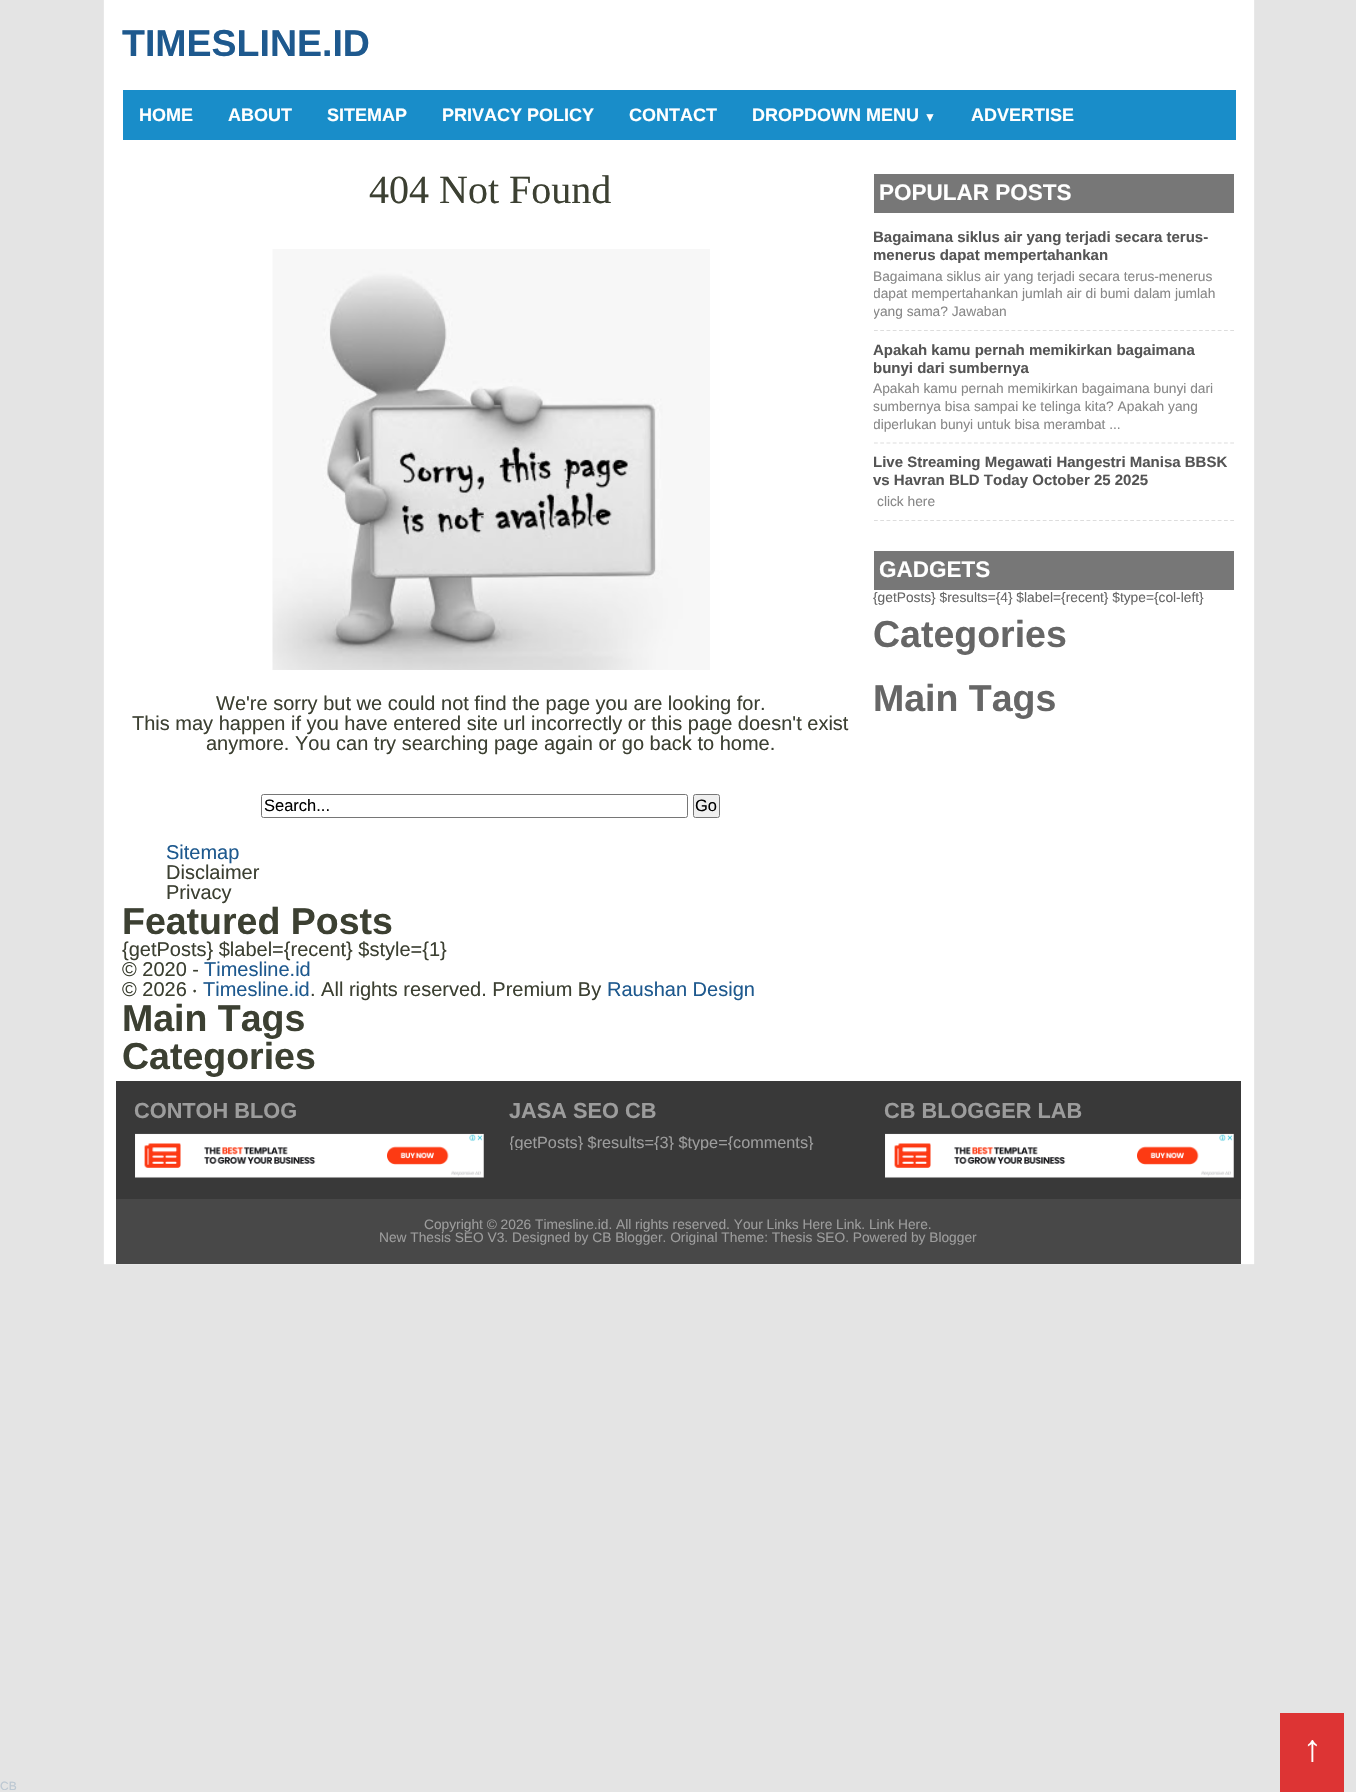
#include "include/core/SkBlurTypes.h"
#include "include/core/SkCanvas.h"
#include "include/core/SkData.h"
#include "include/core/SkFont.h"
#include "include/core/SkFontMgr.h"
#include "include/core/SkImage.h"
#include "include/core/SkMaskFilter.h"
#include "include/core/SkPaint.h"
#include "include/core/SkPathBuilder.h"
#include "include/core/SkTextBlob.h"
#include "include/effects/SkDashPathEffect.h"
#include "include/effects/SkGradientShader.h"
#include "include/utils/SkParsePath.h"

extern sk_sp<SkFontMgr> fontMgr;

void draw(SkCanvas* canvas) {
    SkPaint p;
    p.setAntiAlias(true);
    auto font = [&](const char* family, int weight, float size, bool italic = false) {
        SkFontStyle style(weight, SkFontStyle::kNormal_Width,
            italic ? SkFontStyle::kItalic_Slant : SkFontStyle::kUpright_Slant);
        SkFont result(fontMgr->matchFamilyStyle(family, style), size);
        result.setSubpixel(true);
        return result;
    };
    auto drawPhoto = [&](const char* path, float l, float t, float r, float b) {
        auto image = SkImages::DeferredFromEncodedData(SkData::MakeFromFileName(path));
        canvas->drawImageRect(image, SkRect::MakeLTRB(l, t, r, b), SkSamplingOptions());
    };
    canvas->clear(0xFFE4E4E4);
    p.setColor(0xFFFFFFFF);
    p.setMaskFilter(SkMaskFilter::MakeBlur(kNormal_SkBlurStyle, 0.5f));
    canvas->drawRect(SkRect::MakeLTRB(104, 0, 1254, 1264), p);
    p.setMaskFilter(nullptr);
    canvas->drawRect(SkRect::MakeLTRB(104, 0, 1254, 1264), p);
    auto font1 = font("Liberation Sans", 700, 37.5f);
    p.setColor(0xFF1E598E);
    canvas->drawString("TIMESLINE.ID", 122, 56, font1, p);
    p.setColor(0xFF198DC9);
    canvas->drawRect(SkRect::MakeLTRB(123, 90, 1236, 140), p);
    auto font2 = font("Liberation Sans", 700, 18);
    p.setColor(0xFFFFFFFF);
    {
        const struct { const char* s; float x, y; } items[] = {
            {"HOME", 139, 121},
            {"ABOUT", 228, 121},
            {"SITEMAP", 327, 121},
            {"PRIVACY POLICY", 442, 121},
            {"CONTACT", 629, 121},
            {"DROPDOWN MENU", 752, 121},
        };
        for (auto [s, x, y] : items) {
            canvas->drawString(s, x, y, font2, p);
        }
    }
    auto font3 = font("Liberation Sans", 700, 12);
    canvas->drawString("▼", 924, 121, font3, p);
    canvas->drawString("ADVERTISE", 971, 121, font2, p);
    auto font4 = font("Liberation Serif", 400, 40);
    p.setColor(0xFF3C4032);
    canvas->drawString("404 Not Found", 369, 203, font4, p);
    drawPhoto("media/1.png", 272, 249, 710, 670);
    auto font5 = font("Liberation Sans", 400, 20);
    {
        const struct { const char* s; float x, y; } items[] = {
            {"We're sorry but we could not find the page you are looking for.", 216, 710},
            {"This may happen if you have entered site url incorrectly or this page doesn't exist", 132, 730},
            {"anymore. You can try searching page again or go back to home.", 206, 750},
        };
        for (auto [s, x, y] : items) {
            canvas->drawString(s, x, y, font5, p);
        }
    }
    p.setStyle(SkPaint::kStroke_Style);
    p.setStrokeWidth(1);
    p.setColor(0xFF767676);
    canvas->drawRoundRect(SkRect::MakeLTRB(261.5f, 794.5f, 687.5f, 817.5f), 2, 2, p);
    auto font6 = font("Liberation Sans", 400, 16.5f);
    p.setStyle(SkPaint::kFill_Style);
    p.setColor(0xFF000000);
    canvas->drawString("Search...", 264, 811, font6, p);
    p.setColor(0xFFEFEFEF);
    canvas->drawRoundRect(SkRect::MakeLTRB(693.5f, 794.5f, 719.5f, 817.5f), 2, 2, p);
    p.setStyle(SkPaint::kStroke_Style);
    p.setColor(0xFF767676);
    canvas->drawRoundRect(SkRect::MakeLTRB(693.5f, 794.5f, 719.5f, 817.5f), 2, 2, p);
    p.setStyle(SkPaint::kFill_Style);
    p.setColor(0xFF000000);
    canvas->drawString("Go", 695, 811, font6, p);
    p.setColor(0xFF1E598E);
    canvas->drawString("Sitemap", 166, 859, font5, p);
    p.setColor(0xFF3C4032);
    canvas->drawString("Disclaimer", 166, 879, font5, p);
    canvas->drawString("Privacy", 166, 899, font5, p);
    canvas->drawString("Featured Posts", 122, 934, font1, p);
    canvas->drawString("{getPosts} $label={recent} $style={1}", 122, 956, font5, p);
    canvas->drawString("© 2020 -", 122, 976, font5, p);
    p.setColor(0xFF1E598E);
    canvas->drawString("Timesline.id", 204, 976, font5, p);
    p.setColor(0xFF3C4032);
    canvas->drawString("© 2026", 122, 996, font5, p);
    auto font7 = font("Noto Sans", 400, 20);
    canvas->drawString("‧", 192, 996, font7, p);
    p.setColor(0xFF1E598E);
    canvas->drawString("Timesline.id", 203, 996, font5, p);
    p.setColor(0xFF3C4032);
    canvas->drawString(". All rights reserved. Premium By", 310, 996, font5, p);
    p.setColor(0xFF1E598E);
    canvas->drawString("Raushan Design", 607, 996, font5, p);
    p.setColor(0xFF3C4032);
    canvas->drawString("Main Tags", 122, 1031, font1, p);
    canvas->drawString("Categories", 122, 1069, font1, p);
    p.setColor(0xFF777777);
    canvas->drawRect(SkRect::MakeLTRB(874, 174, 1234, 213), p);
    auto font8 = font("Liberation Sans", 700, 22.5f);
    p.setColor(0xFFFFFFFF);
    canvas->drawString("POPULAR POSTS", 879, 200, font8, p);
    p.setStyle(SkPaint::kStroke_Style);
    p.setStrokeWidth(1.2f);
    p.setColor(0xFFDDDDDD);
    p.setPathEffect(SkDashPathEffect::Make({{3.75f, 2.5f}}, 0));
    canvas->drawPath(SkPathBuilder().moveTo(874, 330.5f).lineTo(1234, 330.5f).detach(), p);
    p.setPathEffect(nullptr);
    auto font9 = font("Liberation Sans", 700, 15);
    p.setStyle(SkPaint::kFill_Style);
    p.setColor(0xFF555555);
    canvas->drawString("Bagaimana siklus air yang terjadi secara terus-", 873, 242, font9, p);
    canvas->drawString("menerus dapat mempertahankan", 873, 260, font9, p);
    auto font10 = font("Liberation Sans", 400, 13.75f);
    p.setColor(0xFF888888);
    canvas->drawString("Bagaimana siklus air yang terjadi secara terus-menerus", 873, 281, font10, p);
    canvas->save();
    canvas->clipRect(SkRect::MakeLTRB(874, 266, 1234, 320));
    canvas->drawString("dapat mempertahankan jumlah air di bumi dalam jumlah", 873, 298, font10, p);
    canvas->drawString("yang sama? Jawaban", 873, 316, font10, p);
    canvas->restore();
    p.setStyle(SkPaint::kStroke_Style);
    p.setColor(0xFFDDDDDD);
    p.setPathEffect(SkDashPathEffect::Make({{3.75f, 2.5f}}, 0));
    canvas->drawPath(SkPathBuilder().moveTo(874, 443).lineTo(1234, 443).detach(), p);
    p.setPathEffect(nullptr);
    p.setStyle(SkPaint::kFill_Style);
    p.setColor(0xFF555555);
    canvas->drawString("Apakah kamu pernah memikirkan bagaimana", 873, 355, font9, p);
    canvas->drawString("bunyi dari sumbernya", 873, 373, font9, p);
    p.setColor(0xFF888888);
    canvas->drawString("Apakah kamu pernah memikirkan bagaimana bunyi dari", 873, 393, font10, p);
    canvas->drawString("sumbernya bisa sampai ke telinga kita? Apakah yang", 873, 411, font10, p);
    canvas->save();
    canvas->clipRect(SkRect::MakeLTRB(874, 380, 1234, 433));
    canvas->drawString("diperlukan bunyi untuk bisa merambat ...", 873, 429, font10, p);
    canvas->restore();
    p.setStyle(SkPaint::kStroke_Style);
    p.setColor(0xFFDDDDDD);
    p.setPathEffect(SkDashPathEffect::Make({{3.75f, 2.5f}}, 0));
    canvas->drawPath(SkPathBuilder().moveTo(874, 520.5f).lineTo(1234, 520.5f).detach(), p);
    p.setPathEffect(nullptr);
    p.setStyle(SkPaint::kFill_Style);
    p.setColor(0xFF555555);
    canvas->drawString("Live Streaming Megawati Hangestri Manisa BBSK", 873, 467, font9, p);
    canvas->drawString("vs Havran BLD Today October 25 2025", 873, 485, font9, p);
    p.setColor(0xFF888888);
    canvas->drawString("click here", 877, 506, font10, p);
    p.setColor(0xFF777777);
    canvas->drawRect(SkRect::MakeLTRB(874, 551, 1234, 590), p);
    p.setColor(0xFFFFFFFF);
    canvas->drawString("GADGETS", 879, 577, font8, p);
    p.setColor(0xFF666666);
    canvas->drawString("{getPosts} $results={4} $label={recent} $type={col-left}", 873, 602, font10, p);
    canvas->drawString("Categories", 873, 647, font1, p);
    canvas->drawString("Main Tags", 873, 711, font1, p);
    p.setColor(0xFF393939);
    canvas->drawRect(SkRect::MakeLTRB(116, 1081, 1241, 1199), p);
    auto font11 = font("Liberation Sans", 700, 21.75f);
    p.setColor(0xFF9C9C9C);
    canvas->drawString("CONTOH BLOG", 134, 1118, font11, p);
    drawPhoto("media/2.png", 135, 1133, 484, 1178);
    canvas->drawString("JASA SEO CB", 509, 1118, font11, p);
    canvas->save();
    canvas->clipRect(SkRect::MakeLTRB(510, 1134, 860, 1150));
    auto font12 = font("Liberation Sans", 400, 16.25f);
    canvas->drawString("{getPosts} $results={3} $type={comments}", 509, 1148, font12, p);
    canvas->restore();
    canvas->drawString("CB BLOGGER LAB", 884, 1118, font11, p);
    drawPhoto("media/2.png", 885, 1133, 1234, 1178);
    p.setColor(0xFF484848);
    canvas->drawRect(SkRect::MakeLTRB(116, 1199, 1241, 1264), p);
    p.setColor(0xFF9C9C9C);
    canvas->drawString("Copyright © 2026 Timesline.id. All rights reserved. Your Links Here Link. Link Here.", 424, 1229, font10, p);
    canvas->drawString("New Thesis SEO V3. Designed by CB Blogger. Original Theme: Thesis SEO. Powered by Blogger", 379, 1242, font10, p);
    p.setColor(0xFFDD3434);
    canvas->drawRect(SkRect::MakeLTRB(1280, 1713, 1344, 1792), p);
    auto font13 = font("Liberation Sans", 400, 37.5f);
    p.setColor(0xFFFFFFFF);
    canvas->drawString("↑", 1303, 1761, font13, p);
    auto font14 = font("Liberation Sans", 400, 12);
    p.setColor(0xFFBCC8D3);
    canvas->drawString("CB", 0, 1790, font14, p);
}
